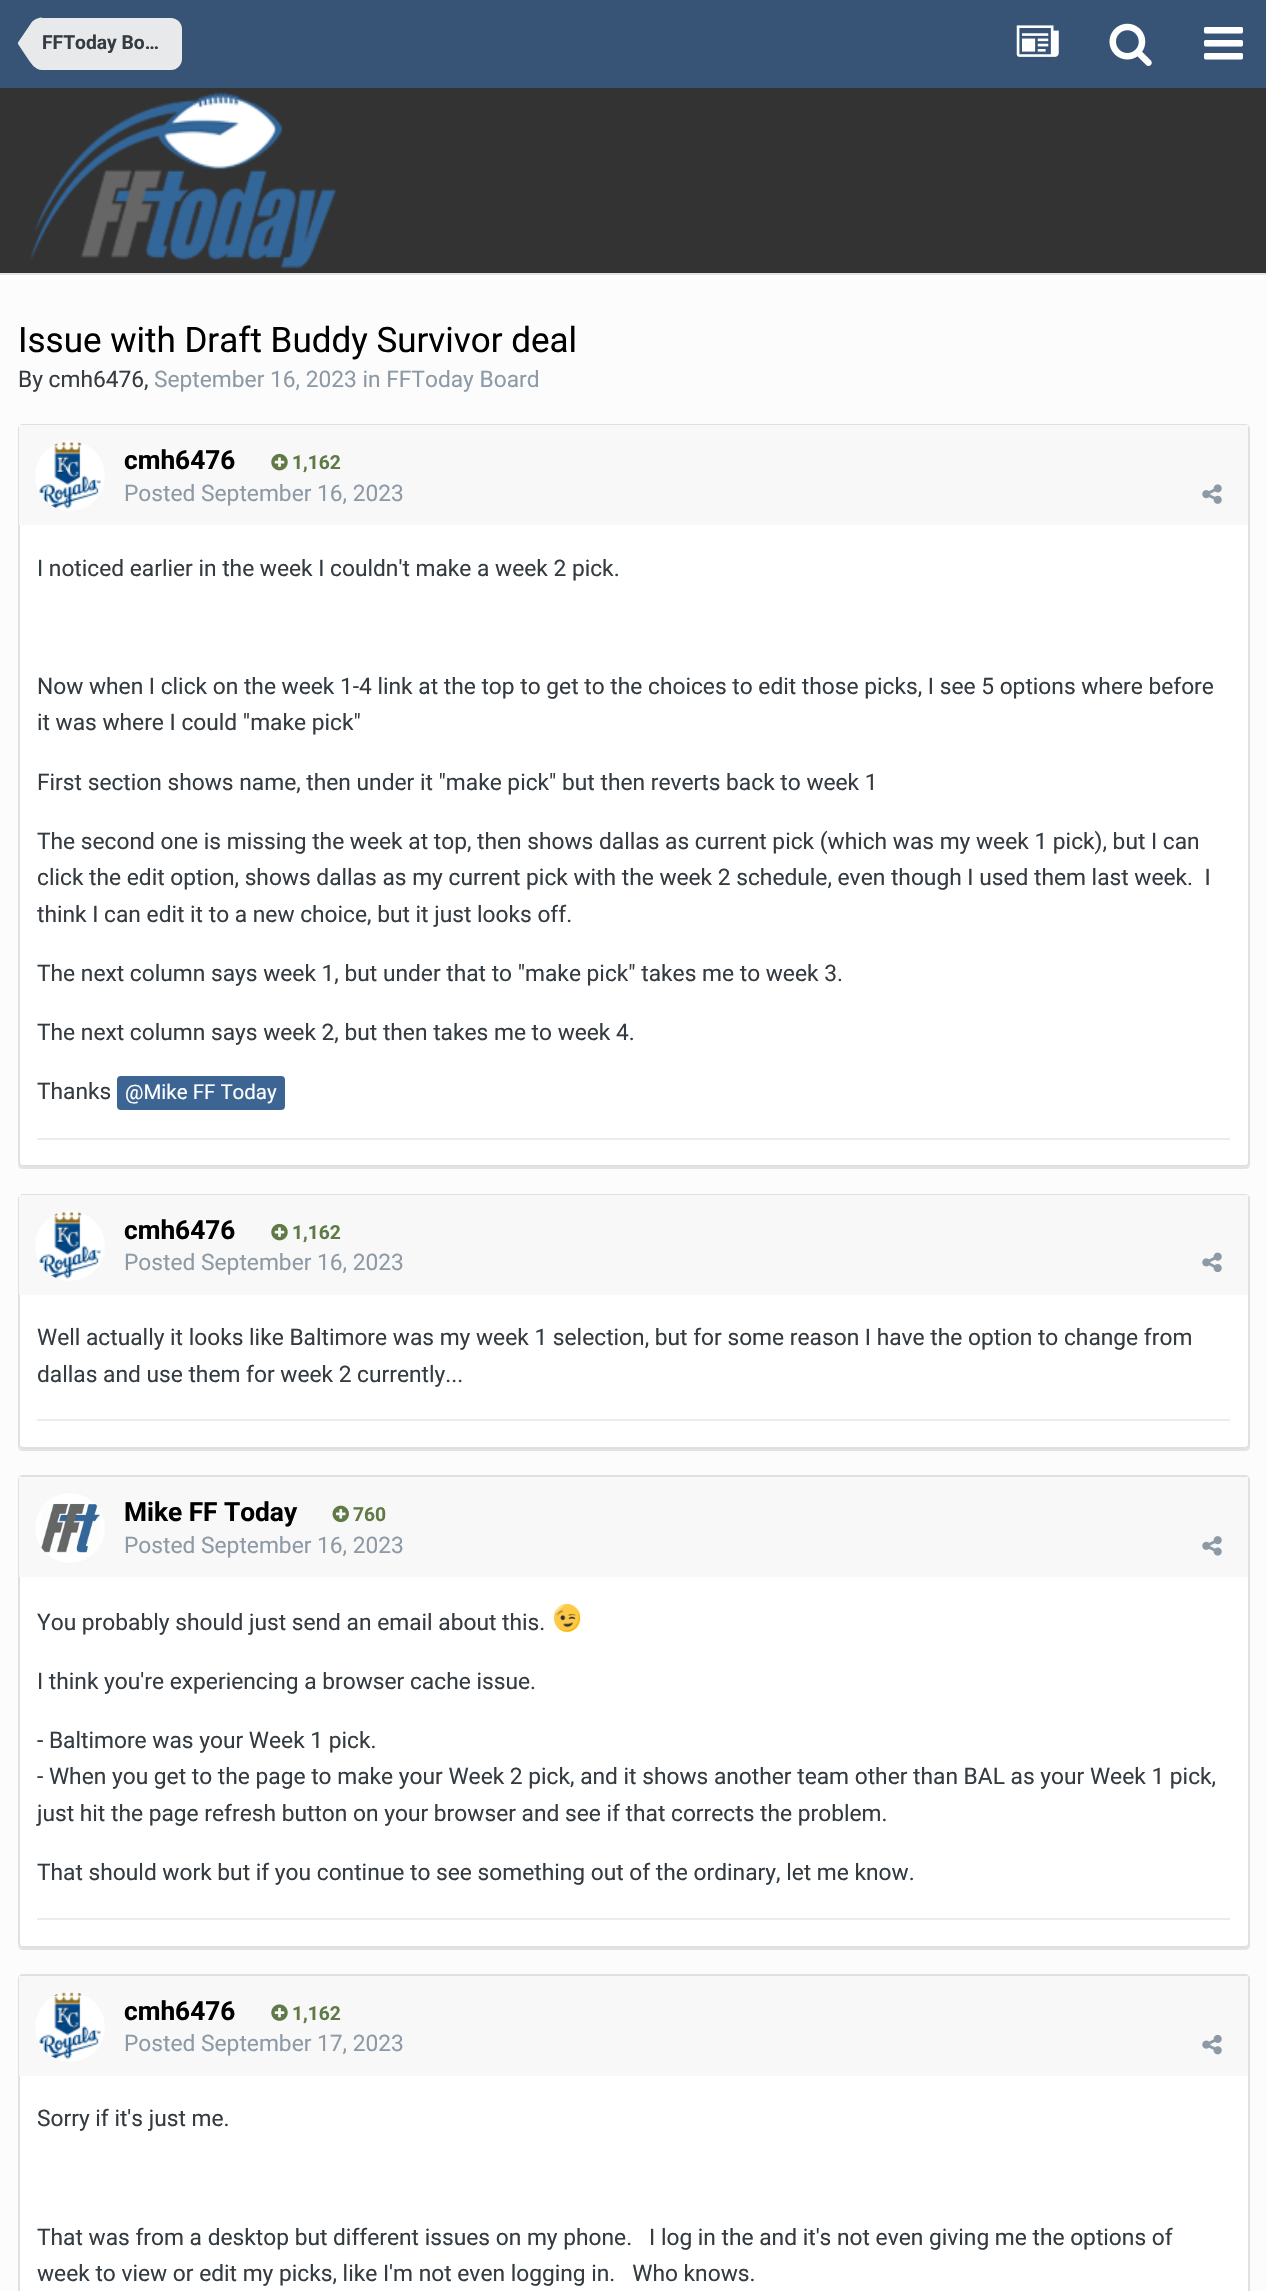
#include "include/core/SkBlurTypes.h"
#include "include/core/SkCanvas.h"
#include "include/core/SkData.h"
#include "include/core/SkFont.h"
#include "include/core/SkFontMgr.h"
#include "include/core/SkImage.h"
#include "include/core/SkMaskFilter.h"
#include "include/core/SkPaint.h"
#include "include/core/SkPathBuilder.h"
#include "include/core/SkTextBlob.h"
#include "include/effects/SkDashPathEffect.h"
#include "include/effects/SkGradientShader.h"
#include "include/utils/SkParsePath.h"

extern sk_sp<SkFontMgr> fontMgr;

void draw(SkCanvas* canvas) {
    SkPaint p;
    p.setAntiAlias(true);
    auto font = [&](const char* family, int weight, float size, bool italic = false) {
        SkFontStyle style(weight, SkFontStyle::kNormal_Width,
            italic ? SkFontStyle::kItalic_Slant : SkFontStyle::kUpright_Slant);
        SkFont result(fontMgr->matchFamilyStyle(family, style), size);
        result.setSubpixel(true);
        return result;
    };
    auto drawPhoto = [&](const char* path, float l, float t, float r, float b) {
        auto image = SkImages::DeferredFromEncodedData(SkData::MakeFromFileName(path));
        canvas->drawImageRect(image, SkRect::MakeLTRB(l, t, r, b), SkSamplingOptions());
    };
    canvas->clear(0xFFFCFCFC);
    p.setColor(0xFFE3E3E3);
    canvas->drawRect(SkRect::MakeLTRB(0, 273, 1266, 275), p);
    p.setColor(0xFF375476);
    canvas->drawRect(SkRect::MakeLTRB(0, 0, 1266, 88), p);
    p.setColor(0xFFE8E9EB);
    canvas->drawPath(SkPathBuilder().moveTo(42, 18).lineTo(171, 18).cubicTo(177, 18, 182, 23, 182, 29).lineTo(182, 59).cubicTo(182, 65, 177, 70, 171, 70).lineTo(42, 70).close().detach(), p);
    canvas->drawPath(SkPathBuilder().moveTo(18, 44).lineTo(42, 44).lineTo(42, 70).cubicTo(35.5f, 70, 31.5f, 64, 28, 59).close().moveTo(42, 17.5f).lineTo(42, 44).lineTo(18, 44).lineTo(18, 42.5f).lineTo(30.5f, 24).cubicTo(32, 22, 31.5f, 22, 33, 21).cubicTo(35.5f, 19, 39, 17.5f, 42, 17.5f).close().detach(), p);
    auto font1 = font("Roboto", 700, 19.25f);
    p.setColor(0xFF353C41);
    canvas->drawString("FFToday Bo…", 42, 49, font1, p);
    drawPhoto("media/1.png", 1016, 25, 1059, 57);
    drawPhoto("media/2.png", 1109, 23, 1152, 66);
    drawPhoto("media/3.png", 1204, 27, 1243, 60);
    p.setColor(0xFF333333);
    canvas->drawRect(SkRect::MakeLTRB(0, 88, 1266, 273), p);
    drawPhoto("media/4.png", 29, 92, 337, 269);
    auto font2 = font("Roboto", 400, 35);
    p.setColor(0xFF000000);
    canvas->drawString("Issue with Draft Buddy Survivor deal", 18, 352, font2, p);
    auto font3 = font("Roboto", 400, 22.75f);
    p.setColor(0xFF353C41);
    canvas->drawString("By cmh6476,", 18, 387, font3, p);
    p.setColor(0xFF8D9AA6);
    canvas->drawString("September 16, 2023 in FFToday Board", 154, 387, font3, p);
    p.setColor(0xFFE3E3E3);
    canvas->drawPath(SkPathBuilder().moveTo(18, 1164).cubicTo(18, 1167, 20, 1169, 23, 1169).lineTo(1245, 1169).cubicTo(1248, 1169, 1250, 1167, 1250, 1164).lineTo(1250, 430).lineTo(1249, 428).lineTo(1250, 1162).cubicTo(1250, 1165, 1247, 1167, 1244, 1167).lineTo(23, 1167).cubicTo(21, 1167, 19, 1166, 18, 1164).close().detach(), p);
    p.setColor(0xFFFFFFFF);
    canvas->drawRoundRect(SkRect::MakeLTRB(19, 425, 1249, 1166), 4, 4, p);
    p.setStyle(SkPaint::kStroke_Style);
    p.setStrokeWidth(2);
    p.setColor(0xFFE0E0E0);
    canvas->drawRoundRect(SkRect::MakeLTRB(19, 425, 1249, 1166), 4, 4, p);
    p.setStyle(SkPaint::kFill_Style);
    p.setColor(0xFFF8F8F8);
    canvas->drawRect(SkRect::MakeLTRB(19, 425, 1248, 525), p);
    p.setColor(0xFFFFFFFF);
    canvas->drawCircle(70, 476, 35, p);
    drawPhoto("media/5.png", 39, 442, 101, 509);
    auto font4 = font("Roboto", 700, 26.25f);
    p.setColor(0xFF000000);
    canvas->drawString("cmh6476", 124, 469, font4, p);
    drawPhoto("media/6.png", 271, 453, 288, 471);
    p.setColor(0xFF5F7A47);
    canvas->drawString("1,162", 292, 469, font1, p);
    p.setColor(0xFF8D9AA6);
    canvas->drawString("Posted September 16, 2023", 124, 501, font3, p);
    drawPhoto("media/7.png", 1202, 484, 1222, 504);
    p.setColor(0xFF353C41);
    {
        const struct { const char* s; float x, y; } items[] = {
            {"I noticed earlier in the week I couldn't make a week 2 pick.", 37, 576},
            {"Now when I click on the week 1-4 link at the top to get to the choices to edit those picks, I see 5 options where before", 37, 694},
            {"it was where I could \"make pick\"", 37, 730},
            {"First section shows name, then under it \"make pick\" but then reverts back to week 1", 37, 790},
            {"The second one is missing the week at top, then shows dallas as current pick (which was my week 1 pick), but I can", 37, 849},
            {"click the edit option, shows dallas as my current pick with the week 2 schedule, even though I used them last week.  I", 37, 885},
            {"think I can edit it to a new choice, but it just looks off.", 37, 922},
            {"The next column says week 1, but under that to \"make pick\" takes me to week 3.", 37, 981},
            {"The next column says week 2, but then takes me to week 4.", 37, 1040},
            {"Thanks", 37, 1099},
        };
        for (auto [s, x, y] : items) {
            canvas->drawString(s, x, y, font3, p);
        }
    }
    p.setColor(0xFF3D6594);
    canvas->drawRoundRect(SkRect::MakeLTRB(117, 1076, 285, 1110), 4, 4, p);
    auto font5 = font("Roboto", 400, 20.5f);
    p.setColor(0xFFFFFFFF);
    canvas->drawString("@Mike FF Today", 125, 1099, font5, p);
    p.setColor(0xFFECECEC);
    canvas->drawRect(SkRect::MakeLTRB(37, 1138, 1230, 1140), p);
    p.setColor(0xFFE3E3E3);
    canvas->drawPath(SkPathBuilder().moveTo(18, 1446).cubicTo(18, 1449, 20, 1451, 23, 1451).lineTo(1245, 1451).cubicTo(1248, 1451, 1250, 1449, 1250, 1446).lineTo(1250, 1200).lineTo(1249, 1198).lineTo(1250, 1444).cubicTo(1250, 1447, 1247, 1449, 1244, 1449).lineTo(23, 1449).cubicTo(21, 1449, 19, 1448, 18, 1446).close().detach(), p);
    p.setColor(0xFFFFFFFF);
    canvas->drawRoundRect(SkRect::MakeLTRB(19, 1195, 1249, 1448), 4, 4, p);
    p.setStyle(SkPaint::kStroke_Style);
    p.setColor(0xFFE0E0E0);
    canvas->drawRoundRect(SkRect::MakeLTRB(19, 1195, 1249, 1448), 4, 4, p);
    p.setStyle(SkPaint::kFill_Style);
    p.setColor(0xFFF8F8F8);
    canvas->drawRect(SkRect::MakeLTRB(19, 1195, 1248, 1295), p);
    p.setColor(0xFFFFFFFF);
    canvas->drawCircle(70, 1246, 35, p);
    drawPhoto("media/8.png", 39, 1212, 101, 1279);
    p.setColor(0xFF000000);
    canvas->drawString("cmh6476", 124, 1239, font4, p);
    drawPhoto("media/6.png", 271, 1223, 288, 1241);
    p.setColor(0xFF5F7A47);
    canvas->drawString("1,162", 292, 1239, font1, p);
    p.setColor(0xFF8D9AA6);
    canvas->drawString("Posted September 16, 2023", 124, 1270, font3, p);
    drawPhoto("media/9.png", 1202, 1252, 1222, 1273);
    p.setColor(0xFF353C41);
    canvas->drawString("Well actually it looks like Baltimore was my week 1 selection, but for some reason I have the option to change from", 37, 1345, font3, p);
    canvas->drawString("dallas and use them for week 2 currently...", 37, 1382, font3, p);
    p.setColor(0xFFECECEC);
    canvas->drawRect(SkRect::MakeLTRB(37, 1419, 1230, 1421), p);
    p.setColor(0xFFE3E3E3);
    canvas->drawPath(SkPathBuilder().moveTo(18, 1945).cubicTo(18, 1948, 20, 1950, 23, 1950).lineTo(1245, 1950).cubicTo(1248, 1950, 1250, 1948, 1250, 1945).lineTo(1250, 1482).lineTo(1249, 1480).lineTo(1250, 1942).cubicTo(1250, 1945, 1247, 1948, 1244, 1948).lineTo(23, 1948).cubicTo(21, 1948, 19, 1947, 18, 1945).close().detach(), p);
    p.setColor(0xFFFFFFFF);
    canvas->drawRoundRect(SkRect::MakeLTRB(19, 1476, 1249, 1947), 4, 4, p);
    p.setStyle(SkPaint::kStroke_Style);
    p.setColor(0xFFE0E0E0);
    canvas->drawRoundRect(SkRect::MakeLTRB(19, 1476, 1249, 1947), 4, 4, p);
    p.setStyle(SkPaint::kFill_Style);
    p.setColor(0xFFF8F8F8);
    canvas->drawRect(SkRect::MakeLTRB(19, 1477, 1248, 1577), p);
    p.setColor(0xFFFFFFFF);
    canvas->drawCircle(70, 1528, 35, p);
    drawPhoto("media/10.png", 41, 1503, 100, 1553);
    p.setColor(0xFF000000);
    canvas->drawString("Mike FF Today", 124, 1521, font4, p);
    drawPhoto("media/11.png", 332, 1505, 349, 1523);
    p.setColor(0xFF5F7A47);
    canvas->drawString("760", 353, 1521, font1, p);
    p.setColor(0xFF8D9AA6);
    canvas->drawString("Posted September 16, 2023", 124, 1553, font3, p);
    drawPhoto("media/12.png", 1202, 1536, 1222, 1556);
    p.setColor(0xFF353C41);
    canvas->drawString("You probably should just send an email about this.", 37, 1630, font3, p);
    drawPhoto("media/13.png", 553, 1604, 581, 1632);
    {
        const struct { const char* s; float x, y; } items[] = {
            {"I think you're experiencing a browser cache issue.", 37, 1689},
            {"- Baltimore was your Week 1 pick.", 37, 1748},
            {"- When you get to the page to make your Week 2 pick, and it shows another team other than BAL as your Week 1 pick,", 37, 1784},
            {"just hit the page refresh button on your browser and see if that corrects the problem.", 37, 1821},
            {"That should work but if you continue to see something out of the ordinary, let me know.", 37, 1880},
        };
        for (auto [s, x, y] : items) {
            canvas->drawString(s, x, y, font3, p);
        }
    }
    p.setColor(0xFFECECEC);
    canvas->drawRect(SkRect::MakeLTRB(37, 1918, 1230, 1920), p);
    p.setColor(0xFFFFFFFF);
    canvas->drawRoundRect(SkRect::MakeLTRB(19, 1975, 1249, 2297), 4, 4, p);
    p.setStyle(SkPaint::kStroke_Style);
    p.setColor(0xFFE0E0E0);
    canvas->drawRoundRect(SkRect::MakeLTRB(19, 1975, 1249, 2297), 4, 4, p);
    p.setStyle(SkPaint::kFill_Style);
    p.setColor(0xFFF8F8F8);
    canvas->drawRect(SkRect::MakeLTRB(19, 1976, 1248, 2076), p);
    p.setColor(0xFFFFFFFF);
    canvas->drawCircle(70, 2027, 35, p);
    drawPhoto("media/14.png", 39, 1992, 101, 2059);
    p.setColor(0xFF000000);
    canvas->drawString("cmh6476", 124, 2020, font4, p);
    drawPhoto("media/15.png", 271, 2004, 288, 2021);
    p.setColor(0xFF5F7A47);
    canvas->drawString("1,162", 292, 2020, font1, p);
    p.setColor(0xFF8D9AA6);
    canvas->drawString("Posted September 17, 2023", 124, 2051, font3, p);
    drawPhoto("media/16.png", 1202, 2034, 1222, 2055);
    p.setColor(0xFF353C41);
    {
        const struct { const char* s; float x, y; } items[] = {
            {"Sorry if it's just me.", 37, 2126},
            {"That was from a desktop but different issues on my phone.   I log in the and it's not even giving me the options of", 37, 2245},
            {"week to view or edit my picks, like I'm not even logging in.   Who knows.", 37, 2281},
        };
        for (auto [s, x, y] : items) {
            canvas->drawString(s, x, y, font3, p);
        }
    }
}
